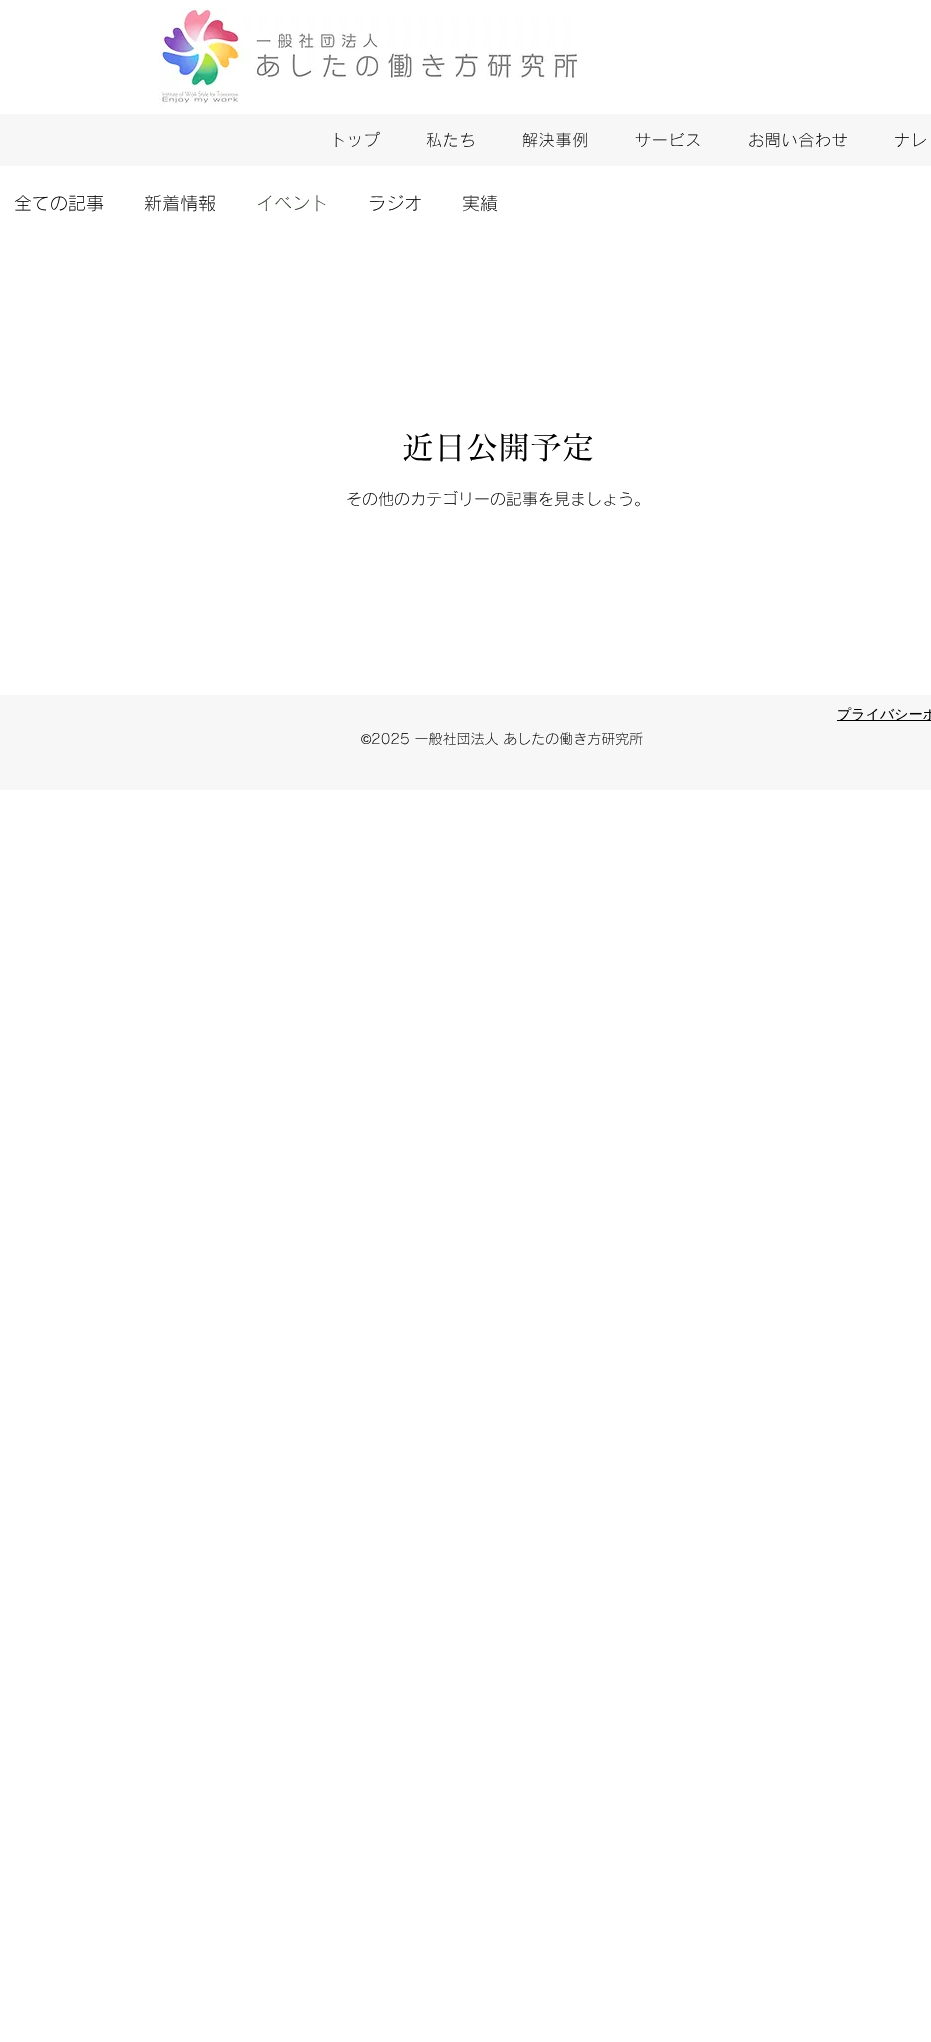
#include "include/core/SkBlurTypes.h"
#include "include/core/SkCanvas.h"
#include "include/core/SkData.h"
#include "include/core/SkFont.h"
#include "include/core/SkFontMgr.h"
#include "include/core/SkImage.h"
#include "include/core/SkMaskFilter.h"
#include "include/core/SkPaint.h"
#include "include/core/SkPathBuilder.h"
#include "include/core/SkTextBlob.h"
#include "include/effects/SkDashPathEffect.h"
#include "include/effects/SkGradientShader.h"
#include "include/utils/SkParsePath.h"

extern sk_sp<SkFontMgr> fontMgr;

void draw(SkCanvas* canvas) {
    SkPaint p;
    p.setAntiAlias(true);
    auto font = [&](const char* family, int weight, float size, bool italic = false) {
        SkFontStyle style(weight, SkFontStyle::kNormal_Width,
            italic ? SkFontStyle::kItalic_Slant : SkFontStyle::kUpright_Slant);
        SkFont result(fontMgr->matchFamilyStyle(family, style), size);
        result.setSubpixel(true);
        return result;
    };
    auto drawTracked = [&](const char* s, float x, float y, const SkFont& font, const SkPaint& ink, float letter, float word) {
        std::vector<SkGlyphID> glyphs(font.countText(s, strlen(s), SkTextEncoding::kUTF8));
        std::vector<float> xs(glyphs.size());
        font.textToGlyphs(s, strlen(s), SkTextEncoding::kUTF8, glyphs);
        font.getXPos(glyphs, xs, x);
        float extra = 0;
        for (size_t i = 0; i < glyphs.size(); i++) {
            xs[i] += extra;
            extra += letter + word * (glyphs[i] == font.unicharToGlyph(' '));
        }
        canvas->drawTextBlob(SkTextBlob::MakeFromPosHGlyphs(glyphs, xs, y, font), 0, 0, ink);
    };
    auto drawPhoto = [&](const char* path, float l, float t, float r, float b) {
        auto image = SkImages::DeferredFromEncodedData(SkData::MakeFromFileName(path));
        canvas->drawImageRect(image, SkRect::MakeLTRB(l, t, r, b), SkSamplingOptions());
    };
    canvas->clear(0xFFFFFFFF);
    drawPhoto("media/1.png", 159, 8, 579, 107);
    p.setColor(0xFFF7F7F7);
    canvas->drawRect(SkRect::MakeLTRB(0, 114, 931, 166), p);
    auto font1 = font("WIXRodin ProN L", 300, 16);
    p.setColor(0xFF000000);
    {
        const struct { const char* s; float x, y; } items[] = {
            {"トップ", 330, 146},
            {"私たち", 426, 146},
            {"解決事例", 522, 146},
            {"サービス", 635, 146},
            {"お問い合わせ", 748, 146},
            {"ナレ", 894, 146},
        };
        for (auto [s, x, y] : items) {
            drawTracked(s, x, y, font1, p, 0.75f, 0);
        }
    }
    auto font2 = font("WIXRodin ProN L", 300, 18);
    canvas->drawString("全ての記事", 14, 210, font2, p);
    canvas->drawString("新着情報", 144, 210, font2, p);
    p.setColor(0xFF394737);
    canvas->drawString("イベント", 256, 210, font2, p);
    p.setColor(0xFF000000);
    canvas->drawString("ラジオ", 368, 210, font2, p);
    canvas->drawString("実績", 462, 210, font2, p);
    auto font3 = font("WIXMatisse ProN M", 500, 32);
    canvas->drawString("近日公開予定", 402, 459, font3, p);
    canvas->drawString("その他のカテゴリーの記事を見ましょう。", 346, 505, font1, p);
    p.setColor(0xFFF7F7F7);
    canvas->drawRect(SkRect::MakeLTRB(0, 695, 931, 790), p);
    p.setColor(0xFF000000);
    canvas->drawRect(SkRect::MakeLTRB(837, 720, 931, 721), p);
    auto font4 = font("WenQuanYi Zen Hei", 500, 14);
    canvas->drawString("プライバシーポ", 837, 719, font4, p);
    auto font5 = font("Liberation Sans", 400, 14);
    canvas->drawString("©", 361, 744, font5, p);
    auto font6 = font("WIXRodin ProN L", 300, 14);
    canvas->drawString("2025 一般社団法人 あしたの働き方研究所", 371, 744, font6, p);
}
